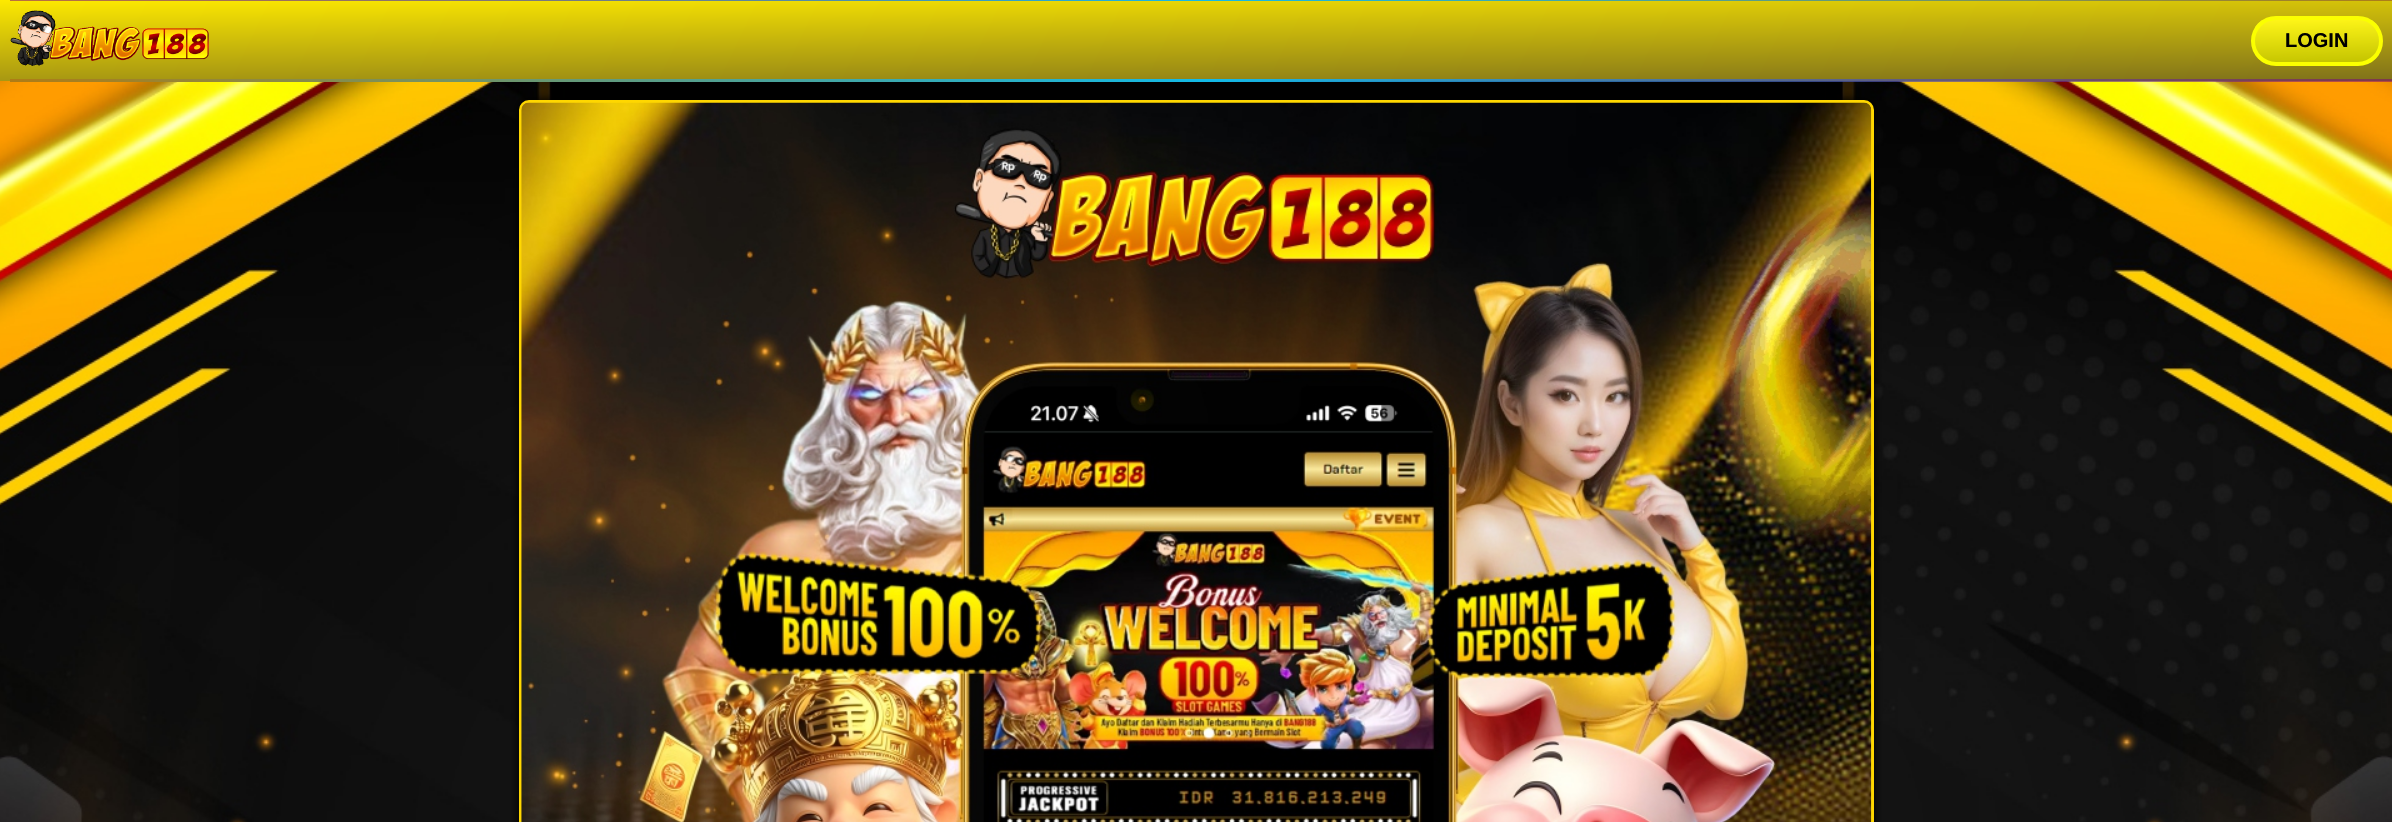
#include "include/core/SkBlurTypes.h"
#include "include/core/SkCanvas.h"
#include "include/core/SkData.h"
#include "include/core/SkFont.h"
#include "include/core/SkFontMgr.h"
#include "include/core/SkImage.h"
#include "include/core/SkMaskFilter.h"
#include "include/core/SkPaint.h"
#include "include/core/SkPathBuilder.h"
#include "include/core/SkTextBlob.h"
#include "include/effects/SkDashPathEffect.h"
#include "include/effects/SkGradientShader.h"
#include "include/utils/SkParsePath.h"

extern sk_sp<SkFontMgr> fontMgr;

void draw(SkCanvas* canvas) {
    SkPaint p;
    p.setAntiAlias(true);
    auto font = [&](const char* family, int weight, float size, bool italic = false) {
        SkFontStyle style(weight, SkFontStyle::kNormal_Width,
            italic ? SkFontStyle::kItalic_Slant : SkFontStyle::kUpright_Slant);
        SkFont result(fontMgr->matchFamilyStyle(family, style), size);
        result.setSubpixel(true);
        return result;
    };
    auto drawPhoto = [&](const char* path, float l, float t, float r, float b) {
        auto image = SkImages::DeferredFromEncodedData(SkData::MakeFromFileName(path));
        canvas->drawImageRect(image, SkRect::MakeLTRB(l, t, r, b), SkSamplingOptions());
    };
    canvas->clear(0xFFFFFFFF);
    drawPhoto("media/1.png", 0, 81, 2392, 822);
    {
        const SkColor colors[] = {0xFFFFEB00, 0xFF7D6F1B};
        const float stops[] = {0, 1};
        const SkPoint ends[] = {{1195, -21}, {1197, 102}};
        p.setShader(SkGradientShader::MakeLinear(ends, colors, stops, 2, SkTileMode::kClamp));
        p.setAlpha(255);
    }
    canvas->drawRect(SkRect::MakeLTRB(0, 0, 2392, 81), p);
    {
        const SkColor colors[] = {0x877D0476, 0xFF12BAE7, 0xFFAE7C16};
        const float stops[] = {0, 0.5f, 1};
        const SkPoint ends[] = {{10, 0.6f}, {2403, 0.6f}};
        p.setShader(SkGradientShader::MakeLinear(ends, colors, stops, 3, SkTileMode::kClamp));
        p.setAlpha(255);
    }
    canvas->drawRect(SkRect::MakeLTRB(10, 0, 2392, 1), p);
    drawPhoto("media/2.png", 10, 10, 209, 66);
    canvas->save();
    canvas->clipPath(SkPathBuilder().moveTo(2276, 16).lineTo(2358, 16).cubicTo(2372, 16, 2383, 27, 2383, 41).cubicTo(2383, 55, 2372, 66, 2358, 66).lineTo(2276, 66).cubicTo(2262, 66, 2251, 55, 2251, 41).cubicTo(2251, 27, 2262, 16, 2276, 16).close().detach(), true);
    {
        const SkColor colors[] = {0xFFFEF518, 0xFFC3C300};
        const float stops[] = {0, 1};
        const SkPoint ends[] = {{2316, 19}, {2317, 64}};
        p.setShader(SkGradientShader::MakeLinear(ends, colors, stops, 2, SkTileMode::kClamp));
        p.setAlpha(255);
    }
    canvas->drawRect(SkRect::MakeLTRB(2255, 20, 2379, 63), p);
    canvas->restore();
    p.setStyle(SkPaint::kStroke_Style);
    p.setStrokeWidth(4);
    p.setShader(nullptr);
    p.setColor(0xFFFBFF00);
    canvas->drawRoundRect(SkRect::MakeLTRB(2253, 18, 2381, 64), 23, 23, p);
    auto font1 = font("Liberation Sans", 700, 20);
    p.setStyle(SkPaint::kFill_Style);
    p.setColor(0xFF000000);
    canvas->drawString("LOGIN", 2285, 47, font1, p);
    {
        const SkColor colors[] = {0xFFAE7C16, 0xFF12BAE7, 0x877D0476};
        const float stops[] = {0, 0.5f, 1};
        const SkPoint ends[] = {{10, 80}, {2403, 80}};
        p.setShader(SkGradientShader::MakeLinear(ends, colors, stops, 3, SkTileMode::kClamp));
        p.setAlpha(255);
    }
    canvas->drawRect(SkRect::MakeLTRB(10, 79, 2392, 82), p);
    p.setShader(nullptr);
    p.setColor(0xFF000000);
    p.setMaskFilter(SkMaskFilter::MakeBlur(kNormal_SkBlurStyle, 5));
    canvas->drawRoundRect(SkRect::MakeLTRB(518, 99, 1875, 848), 11, 11, p);
    p.setMaskFilter(nullptr);
    p.setStyle(SkPaint::kStroke_Style);
    p.setStrokeWidth(3);
    p.setColor(0xFFFFD700);
    canvas->drawRoundRect(SkRect::MakeLTRB(520.5f, 101.5f, 1872.5f, 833.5f), 8.5f, 8.5f, p);
    drawPhoto("media/3.png", 521, 102, 1872, 822);
}
